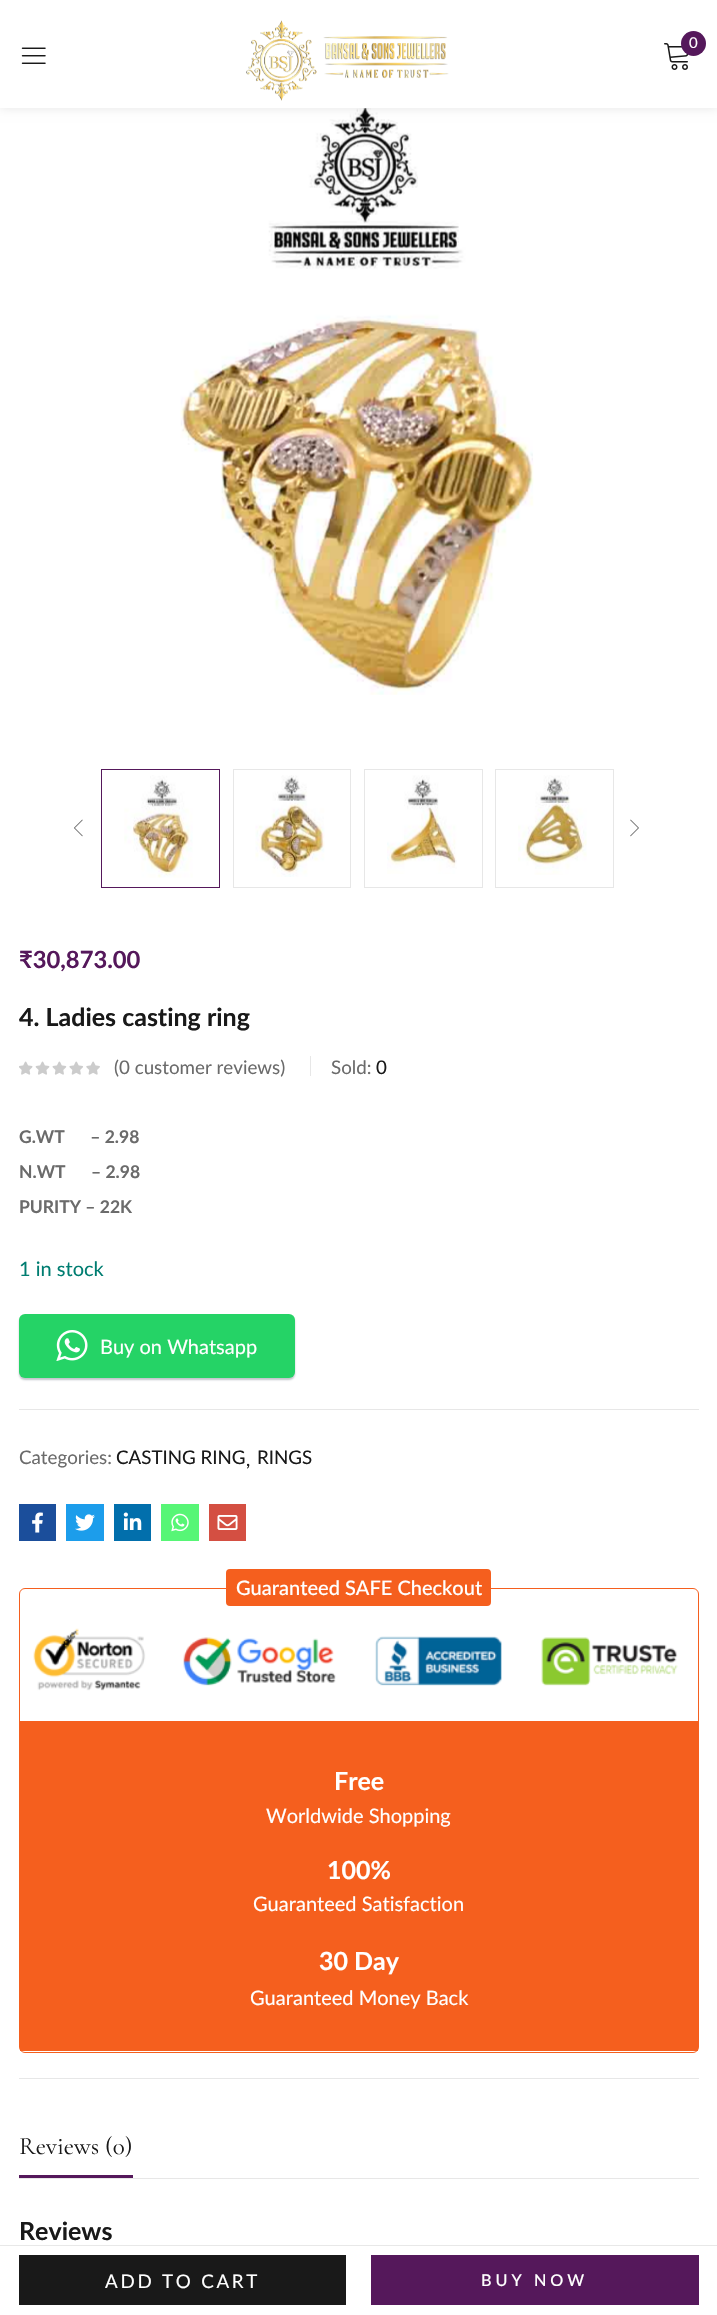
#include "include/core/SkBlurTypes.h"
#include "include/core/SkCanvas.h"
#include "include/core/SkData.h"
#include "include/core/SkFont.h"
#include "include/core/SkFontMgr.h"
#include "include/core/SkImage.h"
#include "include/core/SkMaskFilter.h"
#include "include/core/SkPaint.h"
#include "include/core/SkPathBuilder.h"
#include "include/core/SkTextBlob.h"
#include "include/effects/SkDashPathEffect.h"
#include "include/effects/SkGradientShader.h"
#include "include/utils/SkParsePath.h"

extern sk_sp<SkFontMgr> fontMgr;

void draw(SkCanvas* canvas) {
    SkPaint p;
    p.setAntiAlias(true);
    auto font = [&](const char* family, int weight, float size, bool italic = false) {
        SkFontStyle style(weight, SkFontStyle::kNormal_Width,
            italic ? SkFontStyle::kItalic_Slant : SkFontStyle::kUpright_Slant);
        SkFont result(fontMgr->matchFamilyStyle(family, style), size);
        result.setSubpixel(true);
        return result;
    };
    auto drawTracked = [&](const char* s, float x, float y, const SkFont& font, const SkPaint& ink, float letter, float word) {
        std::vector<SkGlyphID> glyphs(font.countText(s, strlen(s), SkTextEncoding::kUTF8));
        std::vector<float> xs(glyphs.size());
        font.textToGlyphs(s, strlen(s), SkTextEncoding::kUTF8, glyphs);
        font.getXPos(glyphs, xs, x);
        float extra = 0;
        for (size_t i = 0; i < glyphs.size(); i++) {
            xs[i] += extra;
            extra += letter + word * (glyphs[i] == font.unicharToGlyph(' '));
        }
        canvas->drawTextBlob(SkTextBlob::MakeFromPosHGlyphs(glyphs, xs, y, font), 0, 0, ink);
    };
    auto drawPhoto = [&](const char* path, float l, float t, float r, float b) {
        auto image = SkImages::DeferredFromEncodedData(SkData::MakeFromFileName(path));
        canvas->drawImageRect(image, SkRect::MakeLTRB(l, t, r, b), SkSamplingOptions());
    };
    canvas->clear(0xFFFFFFFF);
    drawPhoto("media/4.png", 180, 108, 534, 695);
    p.setColor(0x1A000000);
    p.setMaskFilter(SkMaskFilter::MakeBlur(kNormal_SkBlurStyle, 5));
    canvas->drawRect(SkRect::MakeLTRB(0, 0, 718, 108), p);
    p.setMaskFilter(nullptr);
    p.setColor(0xFFFFFFFF);
    canvas->drawRect(SkRect::MakeLTRB(0, 0, 717, 108), p);
    drawPhoto("media/1.png", 246, 20, 449, 101);
    drawPhoto("media/2.png", 664, 43, 689, 70);
    p.setColor(0xFF55185B);
    canvas->drawCircle(693.5f, 43.5f, 12.5f, p);
    auto font1 = font("Lato", 400, 15);
    p.setColor(0xFFFFFFFF);
    canvas->drawString("0", 689, 48, font1, p);
    drawPhoto("media/3.png", 21, 47, 46, 64);
    p.setColor(0xFFE7E7E7);
    canvas->drawRect(SkRect::MakeLTRB(19, 2078, 699, 2079), p);
    drawPhoto("media/5.png", 74, 819, 83, 837);
    p.setStyle(SkPaint::kStroke_Style);
    p.setStrokeWidth(1);
    p.setColor(0xFF55185B);
    canvas->drawRect(SkRect::MakeLTRB(101.5f, 769.5f, 219.5f, 887.5f), p);
    drawPhoto("media/6.png", 124, 775, 193, 878);
    p.setColor(0xFFE7E7E7);
    canvas->drawRect(SkRect::MakeLTRB(233.5f, 769.5f, 350.5f, 887.5f), p);
    drawPhoto("media/7.png", 255, 775, 325, 877);
    canvas->drawRect(SkRect::MakeLTRB(364.5f, 769.5f, 482.5f, 887.5f), p);
    drawPhoto("media/8.png", 387, 775, 457, 874);
    canvas->drawRect(SkRect::MakeLTRB(495.5f, 769.5f, 613.5f, 887.5f), p);
    drawPhoto("media/9.png", 518, 775, 587, 875);
    drawPhoto("media/10.png", 630, 819, 639, 837);
    auto font2 = font("Lato", 700, 23.75f);
    p.setStyle(SkPaint::kFill_Style);
    p.setColor(0xFF55185B);
    canvas->drawString("₹30,873.00", 19, 968, font2, p);
    auto font3 = font("Lato", 700, 25);
    p.setColor(0xFF191919);
    canvas->drawString("4. Ladies casting ring", 19, 1026, font3, p);
    drawPhoto("media/11.png", 19, 1061, 100, 1075);
    auto font4 = font("Lato", 400, 18.75f);
    p.setColor(0xFF6B6B6B);
    canvas->drawString("(0 customer reviews)", 114, 1074, font4, p);
    p.setColor(0xFFE7E7E7);
    canvas->drawRect(SkRect::MakeLTRB(310, 1056, 311, 1076), p);
    p.setColor(0xFF6B6B6B);
    canvas->drawString("Sold:", 331, 1074, font4, p);
    p.setColor(0xFF191919);
    canvas->drawString("0", 376, 1074, font4, p);
    auto font5 = font("Lato", 700, 17.5f);
    p.setColor(0xFF6B6B6B);
    {
        const struct { const char* s; float x, y; } items[] = {
            {"G.WT      – 2.98", 19, 1143},
            {"N.WT      – 2.98", 19, 1178},
            {"PURITY – 22K", 19, 1213},
        };
        for (auto [s, x, y] : items) {
            canvas->drawString(s, x, y, font5, p);
        }
    }
    auto font6 = font("Lato", 400, 20);
    p.setColor(0xFF007D71);
    canvas->drawString("1 in stock", 19, 1276, font6, p);
    p.setColor(0x4D2D3E4F);
    p.setMaskFilter(SkMaskFilter::MakeBlur(kNormal_SkBlurStyle, 1));
    canvas->drawRoundRect(SkRect::MakeLTRB(19, 1316, 295, 1380), 6, 6, p);
    p.setMaskFilter(nullptr);
    p.setColor(0xFF25D366);
    canvas->drawRoundRect(SkRect::MakeLTRB(19, 1314, 295, 1378), 6, 6, p);
    drawPhoto("media/12.png", 56, 1330, 88, 1361);
    p.setColor(0xFFFFFFFF);
    canvas->drawString("Buy on Whatsapp", 100, 1354, font6, p);
    p.setColor(0xFFE7E7E7);
    canvas->drawRect(SkRect::MakeLTRB(19, 1409, 699, 1410), p);
    p.setColor(0xFF6B6B6B);
    canvas->drawString("Categories:", 19, 1464, font4, p);
    p.setColor(0xFF191919);
    {
        const struct { const char* s; float x, y; } items[] = {
            {"CASTING RING", 116, 1464},
            {",", 246, 1466},
            {"RINGS", 257, 1464},
        };
        for (auto [s, x, y] : items) {
            canvas->drawString(s, x, y, font4, p);
        }
    }
    p.setColor(0xFF1B4E9B);
    canvas->drawRect(SkRect::MakeLTRB(19, 1504, 56, 1541), p);
    drawPhoto("media/13.png", 32, 1512, 43, 1533);
    p.setColor(0xFF1C9DEB);
    canvas->drawRect(SkRect::MakeLTRB(66, 1504, 104, 1541), p);
    drawPhoto("media/14.png", 75, 1514, 95, 1531);
    p.setColor(0xFF026FAC);
    canvas->drawRect(SkRect::MakeLTRB(114, 1504, 151, 1541), p);
    drawPhoto("media/15.png", 123, 1512, 142, 1530);
    p.setColor(0xFF57F676);
    canvas->drawRect(SkRect::MakeLTRB(161, 1504, 199, 1541), p);
    drawPhoto("media/16.png", 171, 1513, 189, 1532);
    p.setColor(0xFFD44F42);
    canvas->drawRect(SkRect::MakeLTRB(209, 1504, 246, 1541), p);
    drawPhoto("media/17.png", 217, 1515, 238, 1530);
    p.setStyle(SkPaint::kStroke_Style);
    p.setColor(0xFFF55F1E);
    canvas->drawRoundRect(SkRect::MakeLTRB(19.5f, 1588.5f, 698.5f, 2052.5f), 5.5f, 5.5f, p);
    p.setStyle(SkPaint::kFill_Style);
    canvas->drawRoundRect(SkRect::MakeLTRB(226, 1569, 491, 1606), 4, 4, p);
    auto font7 = font("Lato", 500, 20);
    p.setColor(0xFFFFFFFF);
    canvas->drawString("Guaranteed SAFE Checkout", 236, 1595, font7, p);
    drawPhoto("media/18.png", 33, 1628, 678, 1691);
    p.setColor(0xFFF55F1E);
    canvas->drawRect(SkRect::MakeLTRB(20, 1721, 698, 2051), p);
    p.setColor(0xFFFFFFFF);
    canvas->drawString("Free", 334, 1790, font3, p);
    canvas->drawString("Worldwide Shopping", 266, 1823, font6, p);
    canvas->drawString("100%", 327, 1879, font3, p);
    canvas->drawString("Guaranteed Satisfaction", 253, 1911, font6, p);
    canvas->drawString("30 Day", 319, 1970, font3, p);
    canvas->drawString("Guaranteed Money Back", 250, 2005, font6, p);
    p.setColor(0xFFE8E8E8);
    canvas->drawRect(SkRect::MakeLTRB(0, 2245, 717, 2246), p);
    p.setColor(0xFF191919);
    canvas->drawRect(SkRect::MakeLTRB(19, 2255, 346, 2305), p);
    p.setColor(0xFFFFFFFF);
    drawTracked("ADD TO CART", 105, 2288, font4, p, 2.75f, 0);
    p.setColor(0xFF55185B);
    canvas->drawRect(SkRect::MakeLTRB(371, 2255, 699, 2305), p);
    auto font8 = font("Lato", 500, 16.25f);
    p.setColor(0xFFFFFFFF);
    drawTracked("BUY NOW", 481, 2286, font8, p, 4, 0);
    p.setColor(0xFFE7E7E7);
    canvas->drawRect(SkRect::MakeLTRB(19, 2178, 699, 2179), p);
    auto font9 = font("Cormorant Garamond", 400, 25);
    p.setColor(0xFF191919);
    canvas->drawString("Reviews (0)", 19, 2154, font9, p);
    p.setColor(0xFF55185B);
    canvas->drawRect(SkRect::MakeLTRB(19, 2175, 133, 2178), p);
    p.setColor(0xFF191919);
    canvas->drawString("Reviews", 19, 2240, font3, p);
}
